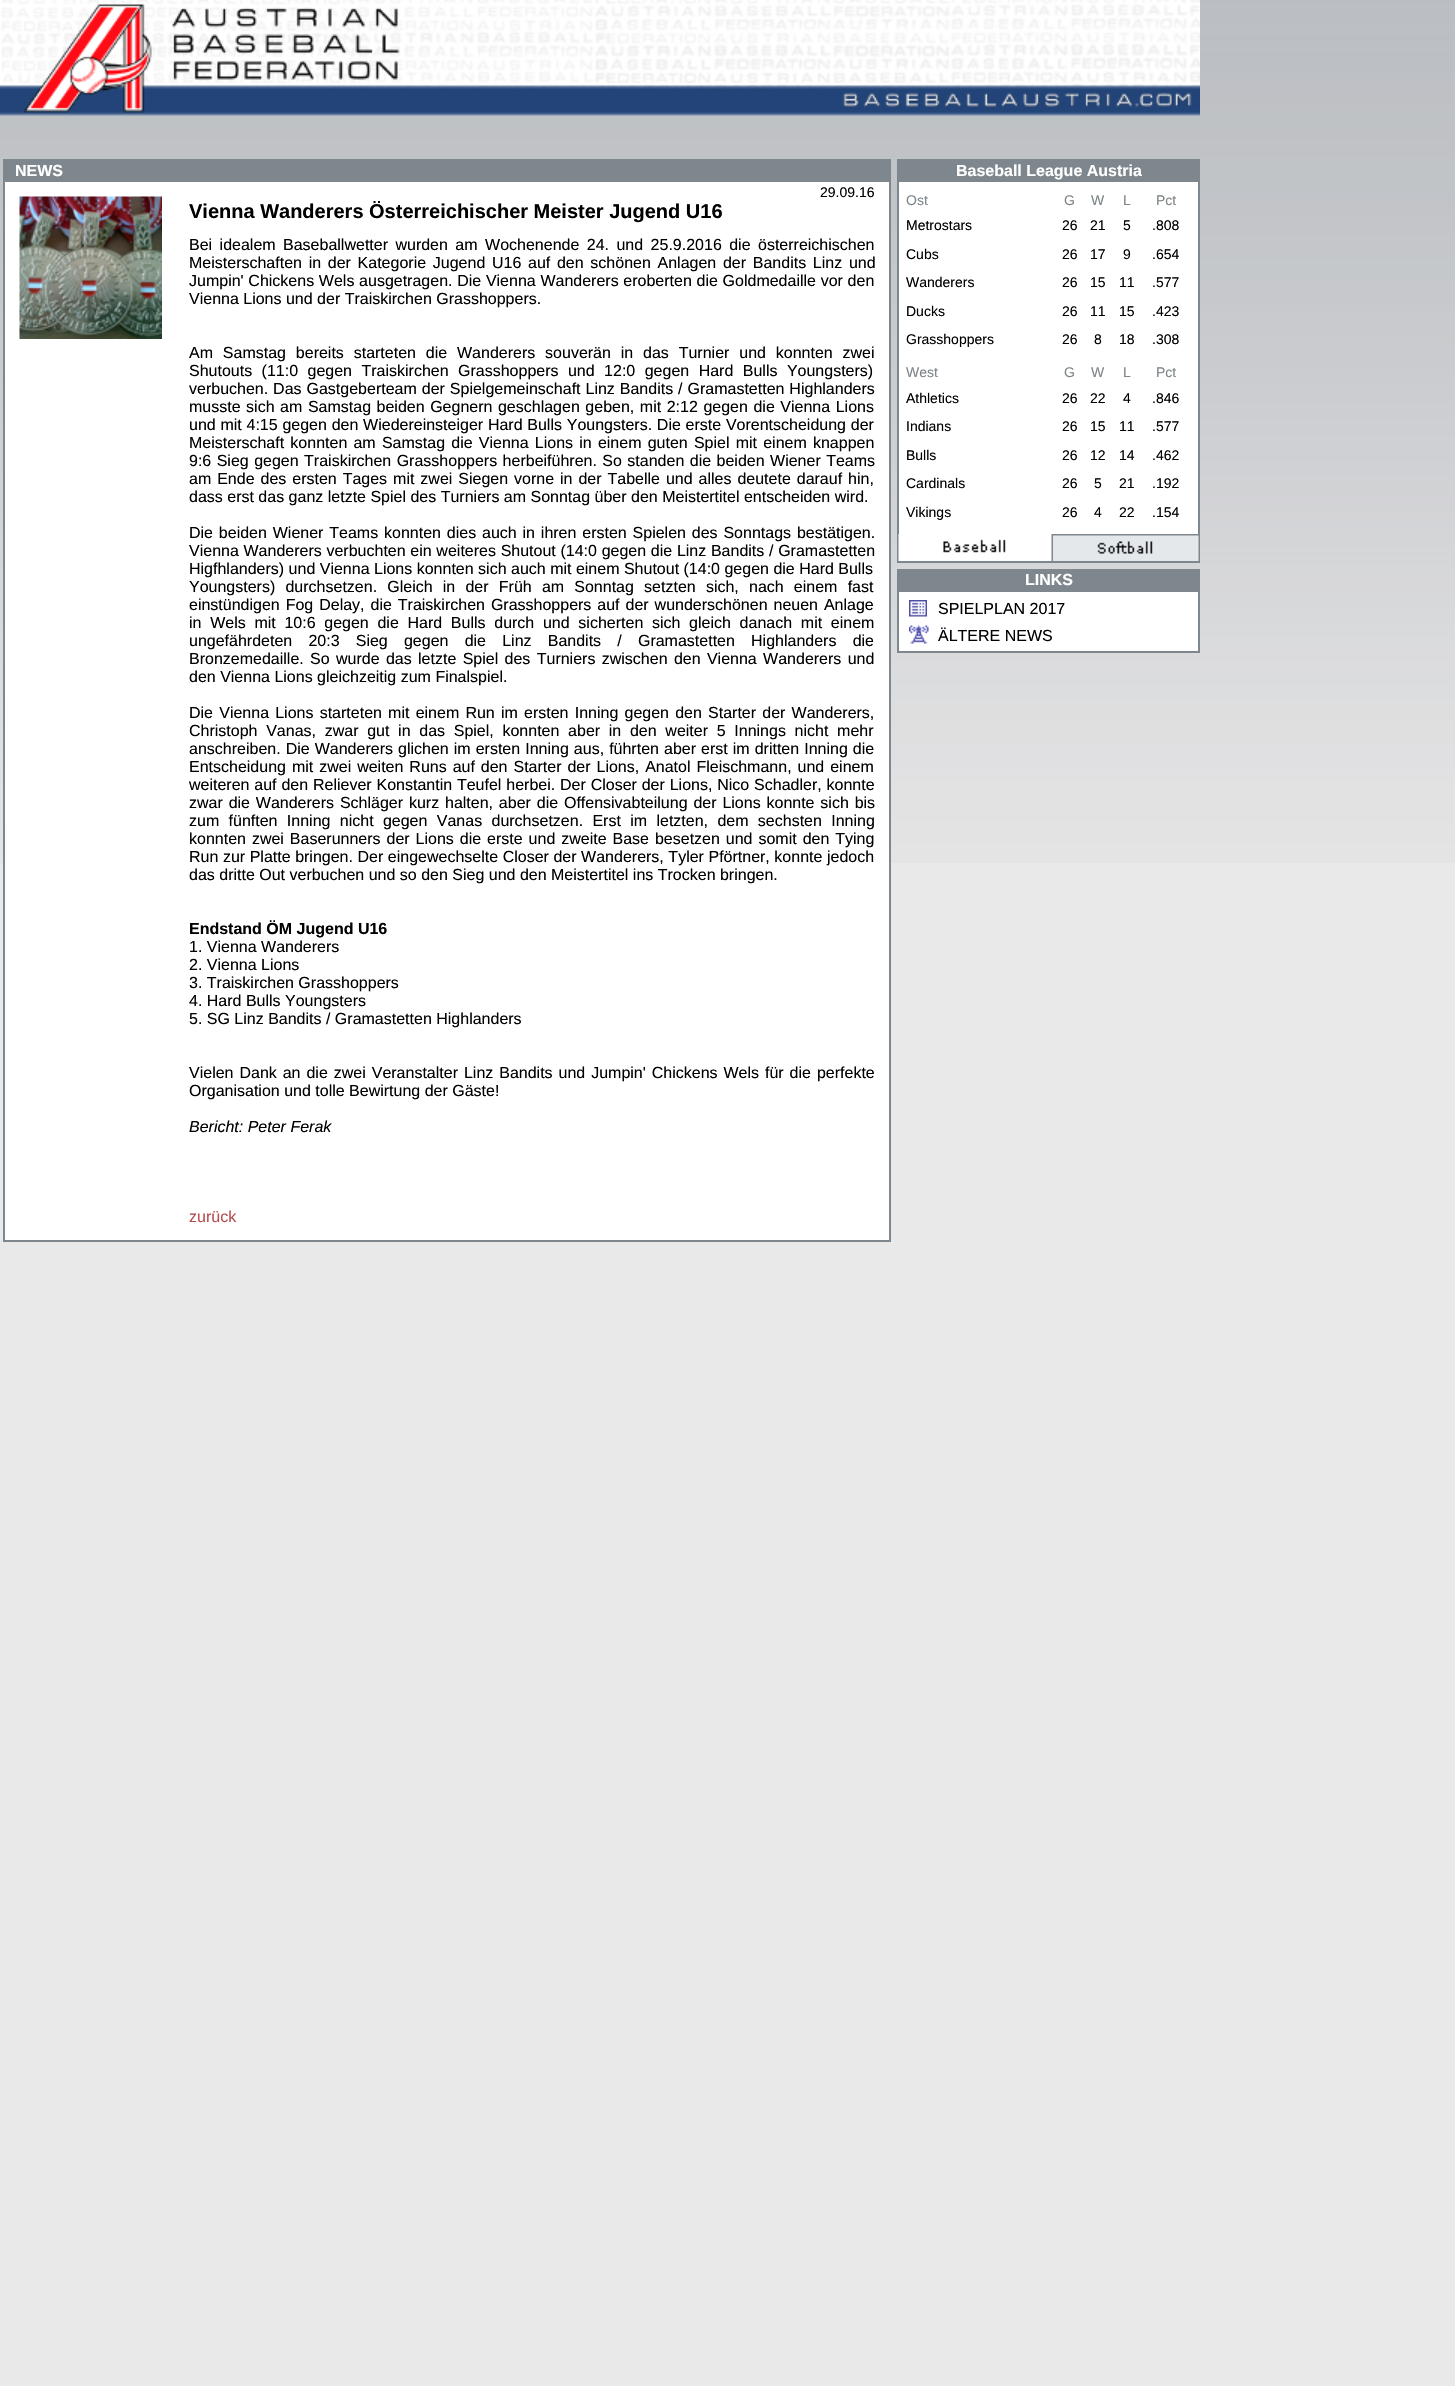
#include "include/core/SkBlurTypes.h"
#include "include/core/SkCanvas.h"
#include "include/core/SkData.h"
#include "include/core/SkFont.h"
#include "include/core/SkFontMgr.h"
#include "include/core/SkImage.h"
#include "include/core/SkMaskFilter.h"
#include "include/core/SkPaint.h"
#include "include/core/SkPathBuilder.h"
#include "include/core/SkTextBlob.h"
#include "include/effects/SkDashPathEffect.h"
#include "include/effects/SkGradientShader.h"
#include "include/utils/SkParsePath.h"

extern sk_sp<SkFontMgr> fontMgr;

void draw(SkCanvas* canvas) {
    SkPaint p;
    p.setAntiAlias(true);
    auto font = [&](const char* family, int weight, float size, bool italic = false) {
        SkFontStyle style(weight, SkFontStyle::kNormal_Width,
            italic ? SkFontStyle::kItalic_Slant : SkFontStyle::kUpright_Slant);
        SkFont result(fontMgr->matchFamilyStyle(family, style), size);
        result.setSubpixel(true);
        return result;
    };
    auto drawTracked = [&](const char* s, float x, float y, const SkFont& font, const SkPaint& ink, float letter, float word) {
        std::vector<SkGlyphID> glyphs(font.countText(s, strlen(s), SkTextEncoding::kUTF8));
        std::vector<float> xs(glyphs.size());
        font.textToGlyphs(s, strlen(s), SkTextEncoding::kUTF8, glyphs);
        font.getXPos(glyphs, xs, x);
        float extra = 0;
        for (size_t i = 0; i < glyphs.size(); i++) {
            xs[i] += extra;
            extra += letter + word * (glyphs[i] == font.unicharToGlyph(' '));
        }
        canvas->drawTextBlob(SkTextBlob::MakeFromPosHGlyphs(glyphs, xs, y, font), 0, 0, ink);
    };
    auto drawPhoto = [&](const char* path, float l, float t, float r, float b) {
        auto image = SkImages::DeferredFromEncodedData(SkData::MakeFromFileName(path));
        canvas->drawImageRect(image, SkRect::MakeLTRB(l, t, r, b), SkSamplingOptions());
    };
    canvas->clear(0xFFE9E9E9);
    drawPhoto("media/1.png", 0, 0, 1455, 863);
    drawPhoto("media/2.png", 0, 0, 1200, 116);
    p.setColor(0xFF7E868E);
    canvas->drawRect(SkRect::MakeLTRB(3, 159, 891, 180), p);
    auto font1 = font("Liberation Sans", 700, 16);
    p.setColor(0xFFFFFFFF);
    canvas->drawString("NEWS", 15, 176, font1, p);
    canvas->drawRect(SkRect::MakeLTRB(4, 181, 890, 1241), p);
    p.setStyle(SkPaint::kStroke_Style);
    p.setStrokeWidth(2);
    p.setColor(0xFF7E868E);
    canvas->drawRect(SkRect::MakeLTRB(4, 181, 890, 1241), p);
    auto font2 = font("Liberation Sans", 400, 14);
    p.setStyle(SkPaint::kFill_Style);
    p.setColor(0xFF000000);
    canvas->drawString("29.09.16", 820, 197, font2, p);
    drawPhoto("media/3.png", 19, 196, 162, 339);
    auto font3 = font("Liberation Sans", 700, 20);
    canvas->drawString("Vienna Wanderers Österreichischer Meister Jugend U16", 189, 218, font3, p);
    auto font4 = font("Liberation Sans", 400, 16);
    drawTracked("Bei idealem Baseballwetter wurden am Wochenende 24. und 25.9.2016 die österreichischen", 189, 250, font4, p, 0, 3);
    drawTracked("Meisterschaften in der Kategorie Jugend U16 auf den schönen Anlagen der Bandits Linz und", 189, 268, font4, p, 0, 2.25f);
    drawTracked("Jumpin' Chickens Wels ausgetragen. Die Vienna Wanderers eroberten die Goldmedaille vor den", 189, 286, font4, p, 0, 0.25f);
    canvas->drawString("Vienna Lions und der Traiskirchen Grasshoppers.", 189, 304, font4, p);
    drawTracked("Am Samstag bereits starteten die Wanderers souverän in das Turnier und konnten zwei", 189, 358, font4, p, 0, 5.4f);
    drawTracked("Shutouts (11:0 gegen Traiskirchen Grasshoppers und 12:0 gegen Hard Bulls Youngsters)", 189, 376, font4, p, 0, 5);
    drawTracked("verbuchen. Das Gastgeberteam der Spielgemeinschaft Linz Bandits / Gramastetten Highlanders", 189, 394, font4, p, 0, 0.5f);
    drawTracked("musste sich am Samstag beiden Gegnern geschlagen geben, mit 2:12 gegen die Vienna Lions", 189, 412, font4, p, 0, 1.1f);
    drawTracked("und mit 4:15 gegen den Wiedereinsteiger Hard Bulls Youngsters. Die erste Vorentscheidung der", 189, 430, font4, p, 0, 0.3f);
    drawTracked("Meisterschaft konnten am Samstag die Vienna Lions in einem guten Spiel mit einem knappen", 189, 448, font4, p, 0, 1.75f);
    drawTracked("9:6 Sieg gegen Traiskirchen Grasshoppers herbeiführen. So standen die beiden Wiener Teams", 189, 466, font4, p, 0, 1);
    drawTracked("am Ende des ersten Tages mit zwei Siegen vorne in der Tabelle und alles deutete darauf hin,", 189, 484, font4, p, 0, 1.5f);
    canvas->drawString("dass erst das ganz letzte Spiel des Turniers am Sonntag über den Meistertitel entscheiden wird.", 189, 502, font4, p);
    drawTracked("Die beiden Wiener Teams konnten dies auch in ihren ersten Spielen des Sonntags bestätigen.", 189, 538, font4, p, 0, 1.4f);
    drawTracked("Vienna Wanderers verbuchten ein weiteres Shutout (14:0 gegen die Linz Bandits / Gramastetten", 189, 556, font4, p, 0, 0.25f);
    canvas->drawString("Higfhlanders) und Vienna Lions konnten sich auch mit einem Shutout (14:0 gegen die Hard Bulls", 189, 574, font4, p);
    drawTracked("Youngsters) durchsetzen. Gleich in der Früh am Sonntag setzten sich, nach einem fast", 189, 592, font4, p, 0, 5.75f);
    drawTracked("einstündigen Fog Delay, die Traiskirchen Grasshoppers auf der wunderschönen neuen Anlage", 189, 610, font4, p, 0, 1.5f);
    drawTracked("in Wels mit 10:6 gegen die Hard Bulls durch und sicherten sich gleich danach mit einem", 189, 628, font4, p, 0, 4.25f);
    drawTracked("ungefährdeten 20:3 Sieg gegen die Linz Bandits / Gramastetten Highlanders die", 189, 646, font4, p, 0, 11.75f);
    drawTracked("Bronzemedaille. So wurde das letzte Spiel des Turniers zwischen den Vienna Wanderers und", 189, 664, font4, p, 0, 1.9f);
    canvas->drawString("den Vienna Lions gleichzeitig zum Finalspiel.", 189, 682, font4, p);
    drawTracked("Die Vienna Lions starteten mit einem Run im ersten Inning gegen den Starter der Wanderers,", 189, 718, font4, p, 0, 1.75f);
    drawTracked("Christoph Vanas, zwar gut in das Spiel, konnten aber in den weiter 5 Innings nicht mehr", 189, 736, font4, p, 0, 4.25f);
    drawTracked("anschreiben. Die Wanderers glichen im ersten Inning aus, führten aber erst im dritten Inning die", 189, 754, font4, p, 0, 0.6f);
    drawTracked("Entscheidung mit zwei weiten Runs auf den Starter der Lions, Anatol Fleischmann, und einem", 189, 772, font4, p, 0, 1.5f);
    drawTracked("weiteren auf den Reliever Konstantin Teufel herbei. Der Closer der Lions, Nico Schadler, konnte", 189, 790, font4, p, 0, 0.4f);
    drawTracked("zwar die Wanderers Schläger kurz halten, aber die Offensivabteilung der Lions konnte sich bis", 189, 808, font4, p, 0, 1.4f);
    drawTracked("zum fünften Inning nicht gegen Vanas durchsetzen. Erst im letzten, dem sechsten Inning", 189, 826, font4, p, 0, 4.9f);
    drawTracked("konnten zwei Baserunners der Lions die erste und zweite Base besetzen und somit den Tying", 189, 844, font4, p, 0, 1.5f);
    drawTracked("Run zur Platte bringen. Der eingewechselte Closer der Wanderers, Tyler Pförtner, konnte jedoch", 189, 862, font4, p, 0, 0.1f);
    canvas->drawString("das dritte Out verbuchen und so den Sieg und den Meistertitel ins Trocken bringen.", 189, 880, font4, p);
    canvas->drawString("Endstand ÖM Jugend U16", 189, 934, font1, p);
    {
        const struct { const char* s; float x, y; } items[] = {
            {"1. Vienna Wanderers", 189, 952},
            {"2. Vienna Lions", 189, 970},
            {"3. Traiskirchen Grasshoppers", 189, 988},
            {"4. Hard Bulls Youngsters", 189, 1006},
            {"5. SG Linz Bandits / Gramastetten Highlanders", 189, 1024},
        };
        for (auto [s, x, y] : items) {
            canvas->drawString(s, x, y, font4, p);
        }
    }
    drawTracked("Vielen Dank an die zwei Veranstalter Linz Bandits und Jumpin' Chickens Wels für die perfekte", 189, 1078, font4, p, 0, 1.5f);
    canvas->drawString("Organisation und tolle Bewirtung der Gäste!", 189, 1096, font4, p);
    auto font5 = font("Liberation Sans", 400, 16, true);
    canvas->drawString("Bericht: Peter Ferak", 189, 1132, font5, p);
    p.setColor(0xFFB74E4F);
    canvas->drawString("zurück", 189, 1222, font4, p);
    p.setColor(0xFF7E868E);
    canvas->drawRect(SkRect::MakeLTRB(897, 159, 1200, 180), p);
    p.setColor(0xFFFFFFFF);
    canvas->drawString("Baseball League Austria", 956, 176, font1, p);
    canvas->drawRect(SkRect::MakeLTRB(899, 182, 1198, 534), p);
    p.setStyle(SkPaint::kStroke_Style);
    p.setColor(0xFF7E868E);
    canvas->drawRect(SkRect::MakeLTRB(898, 181, 1199, 562), p);
    p.setStyle(SkPaint::kFill_Style);
    p.setColor(0xFF7D8588);
    {
        const struct { const char* s; float x, y; } items[] = {
            {"Ost", 906, 205},
            {"G", 1064, 205},
            {"W", 1091, 205},
            {"L", 1123, 205},
            {"Pct", 1156, 205},
        };
        for (auto [s, x, y] : items) {
            canvas->drawString(s, x, y, font2, p);
        }
    }
    p.setColor(0xFF000000);
    {
        const struct { const char* s; float x, y; } items[] = {
            {"Metrostars", 906, 230},
            {"26", 1062, 230},
            {"21", 1090, 230},
            {"5", 1123, 230},
            {".808", 1152, 230},
            {"Cubs", 906, 259},
            {"26", 1062, 259},
            {"17", 1090, 259},
            {"9", 1123, 259},
            {".654", 1152, 259},
            {"Wanderers", 906, 287},
            {"26", 1062, 287},
            {"15", 1090, 287},
            {"11", 1119, 287},
            {".577", 1152, 287},
            {"Ducks", 906, 316},
            {"26", 1062, 316},
            {"11", 1090, 316},
            {"15", 1119, 316},
            {".423", 1152, 316},
            {"Grasshoppers", 906, 344},
            {"26", 1062, 344},
            {"8", 1094, 344},
            {"18", 1119, 344},
            {".308", 1152, 344},
        };
        for (auto [s, x, y] : items) {
            canvas->drawString(s, x, y, font2, p);
        }
    }
    p.setColor(0xFF7D8588);
    {
        const struct { const char* s; float x, y; } items[] = {
            {"West", 906, 377},
            {"G", 1064, 377},
            {"W", 1091, 377},
            {"L", 1123, 377},
            {"Pct", 1156, 377},
        };
        for (auto [s, x, y] : items) {
            canvas->drawString(s, x, y, font2, p);
        }
    }
    p.setColor(0xFF000000);
    {
        const struct { const char* s; float x, y; } items[] = {
            {"Athletics", 906, 403},
            {"26", 1062, 403},
            {"22", 1090, 403},
            {"4", 1123, 403},
            {".846", 1152, 403},
            {"Indians", 906, 431},
            {"26", 1062, 431},
            {"15", 1090, 431},
            {"11", 1119, 431},
            {".577", 1152, 431},
            {"Bulls", 906, 460},
            {"26", 1062, 460},
            {"12", 1090, 460},
            {"14", 1119, 460},
            {".462", 1152, 460},
            {"Cardinals", 906, 488},
            {"26", 1062, 488},
            {"5", 1094, 488},
            {"21", 1119, 488},
            {".192", 1152, 488},
            {"Vikings", 906, 517},
            {"26", 1062, 517},
            {"4", 1094, 517},
            {"22", 1119, 517},
            {".154", 1152, 517},
        };
        for (auto [s, x, y] : items) {
            canvas->drawString(s, x, y, font2, p);
        }
    }
    drawPhoto("media/4.png", 898, 534, 1053, 561);
    drawPhoto("media/5.png", 1053, 534, 1199, 561);
    p.setColor(0xFF7E868E);
    canvas->drawRect(SkRect::MakeLTRB(897, 569, 1200, 590), p);
    p.setColor(0xFFFFFFFF);
    canvas->drawString("LINKS", 1025, 585, font1, p);
    canvas->drawRect(SkRect::MakeLTRB(898, 591, 1199, 652), p);
    p.setStyle(SkPaint::kStroke_Style);
    p.setColor(0xFF7E868E);
    canvas->drawRect(SkRect::MakeLTRB(898, 591, 1199, 652), p);
    drawPhoto("media/6.png", 909, 600, 927, 617);
    p.setStyle(SkPaint::kFill_Style);
    p.setColor(0xFF000000);
    canvas->drawString("SPIELPLAN 2017", 938, 614, font4, p);
    drawPhoto("media/7.png", 909, 625, 929, 644);
    canvas->drawString("ÄLTERE NEWS", 938, 641, font4, p);
}
